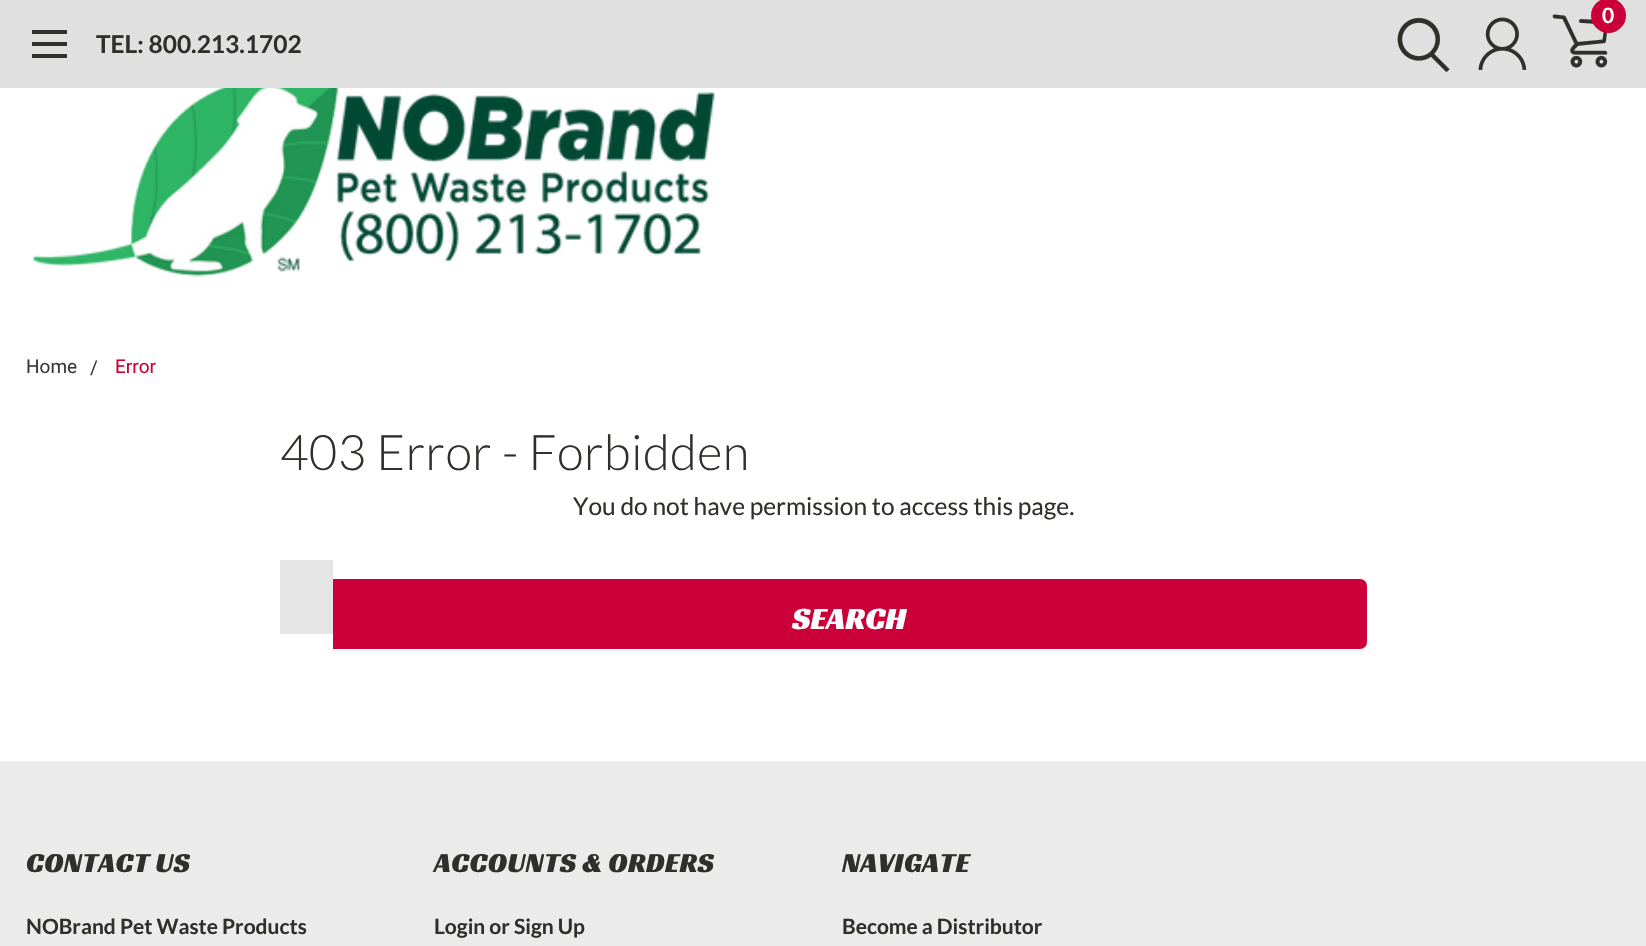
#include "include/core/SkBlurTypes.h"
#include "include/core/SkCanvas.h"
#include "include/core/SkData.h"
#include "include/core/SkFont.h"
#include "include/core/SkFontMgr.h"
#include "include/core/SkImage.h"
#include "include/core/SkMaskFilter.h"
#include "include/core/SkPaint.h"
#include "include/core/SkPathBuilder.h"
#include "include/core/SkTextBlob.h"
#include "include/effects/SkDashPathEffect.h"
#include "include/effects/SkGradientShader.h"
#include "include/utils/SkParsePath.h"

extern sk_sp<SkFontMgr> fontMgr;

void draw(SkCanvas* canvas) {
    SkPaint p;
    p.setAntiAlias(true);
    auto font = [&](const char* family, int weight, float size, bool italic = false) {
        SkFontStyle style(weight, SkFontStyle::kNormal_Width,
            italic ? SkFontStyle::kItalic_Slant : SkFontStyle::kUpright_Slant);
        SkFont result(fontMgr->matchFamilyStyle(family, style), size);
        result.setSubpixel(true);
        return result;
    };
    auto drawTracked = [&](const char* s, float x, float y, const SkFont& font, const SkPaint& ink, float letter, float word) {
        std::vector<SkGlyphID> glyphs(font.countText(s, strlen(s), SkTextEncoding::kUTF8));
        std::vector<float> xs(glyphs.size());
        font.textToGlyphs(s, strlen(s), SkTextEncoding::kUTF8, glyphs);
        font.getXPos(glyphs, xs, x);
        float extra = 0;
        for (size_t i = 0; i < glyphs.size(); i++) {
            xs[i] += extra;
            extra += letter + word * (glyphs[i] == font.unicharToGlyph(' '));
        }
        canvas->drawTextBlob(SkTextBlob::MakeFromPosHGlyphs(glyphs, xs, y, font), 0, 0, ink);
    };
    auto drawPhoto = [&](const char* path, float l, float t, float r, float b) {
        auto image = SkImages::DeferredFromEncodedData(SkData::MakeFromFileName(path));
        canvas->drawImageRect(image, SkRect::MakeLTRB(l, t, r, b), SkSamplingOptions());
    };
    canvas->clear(0xFFFFFFFF);
    p.setColor(0xFFE0E0E0);
    canvas->drawRect(SkRect::MakeLTRB(0, 0, 1646, 88), p);
    drawPhoto("media/1.png", 1397, 18, 1450, 73);
    drawPhoto("media/2.png", 1478, 17, 1527, 70);
    drawPhoto("media/3.png", 1552, 14, 1608, 68);
    p.setColor(0xFFCB0039);
    canvas->drawCircle(1608.5f, 15.5f, 17.5f, p);
    auto font1 = font("Lato", 700, 21);
    p.setColor(0xFFFFFFFF);
    canvas->drawString("0", 1602, 23, font1, p);
    {
        const struct { float l, t, r, b; SkColor color; } items[] = {
            {32, 42, 67, 46, 0xFF2F2F2B},
            {32, 30, 67, 34, 0xFF2F2F2B},
            {32, 54, 67, 58, 0xFF2F2F2B},
        };
        for (auto [l, t, r, b, color] : items) {
            p.setColor(color);
            canvas->drawRect(SkRect::MakeLTRB(l, t, r, b), p);
        }
    }
    auto font2 = font("Lato", 700, 24.5f);
    canvas->drawString("TEL: 800.213.1702", 96, 53, font2, p);
    drawPhoto("media/4.png", 32, 88, 715, 277);
    auto font3 = font("Roboto", 400, 19);
    p.setColor(0xFF393939);
    canvas->drawString("Home", 26, 373, font3, p);
    canvas->drawString("/", 90, 374, font3, p);
    p.setColor(0xFFCB0039);
    canvas->drawString("Error", 115, 373, font3, p);
    auto font4 = font("Lato", 300, 49);
    p.setColor(0xFF2F2F2B);
    drawTracked("403 Error - Forbidden", 280, 470, font4, p, 0.4f, 0);
    auto font5 = font("Lato", 400, 24.5f);
    canvas->drawString("You do not have permission to access this page.", 573, 515, font5, p);
    p.setColor(0xFFE5E5E5);
    canvas->drawRect(SkRect::MakeLTRB(280, 560, 333, 634), p);
    p.setColor(0xFFCB0039);
    canvas->drawPath(SkPathBuilder().moveTo(334, 580).lineTo(1360, 580).cubicTo(1363.5f, 580, 1366, 582.5f, 1366, 586).lineTo(1366, 642).cubicTo(1366, 645.5f, 1363.5f, 648, 1360, 648).lineTo(334, 648).close().detach(), p);
    p.setStyle(SkPaint::kStroke_Style);
    p.setStrokeWidth(2);
    canvas->drawPath(SkPathBuilder().moveTo(334, 580).lineTo(1360, 580).cubicTo(1363.5f, 580, 1366, 582.5f, 1366, 586).lineTo(1366, 642).cubicTo(1366, 645.5f, 1363.5f, 648, 1360, 648).lineTo(334, 648).close().detach(), p);
    auto font6 = font("Racing Sans One", 400, 31.5f);
    p.setStyle(SkPaint::kFill_Style);
    p.setColor(0xFFFFFFFF);
    canvas->drawString("SEARCH", 792, 629, font6, p);
    p.setColor(0xFFEBEBEB);
    canvas->drawRect(SkRect::MakeLTRB(0, 761, 1646, 946), p);
    auto font7 = font("Racing Sans One", 400, 28);
    p.setColor(0xFF2F2F2B);
    drawTracked("CONTACT US", 26, 872, font7, p, 0.4f, 0);
    canvas->drawString("NOBrand Pet Waste Products", 26, 934, font1, p);
    drawTracked("ACCOUNTS & ORDERS", 434, 872, font7, p, 0.4f, 0);
    canvas->drawString("Login or", 434, 934, font1, p);
    canvas->drawString("Sign Up", 514, 934, font1, p);
    drawTracked("NAVIGATE", 842, 872, font7, p, 0.4f, 0);
    canvas->drawString("Become a Distributor", 842, 934, font1, p);
}
